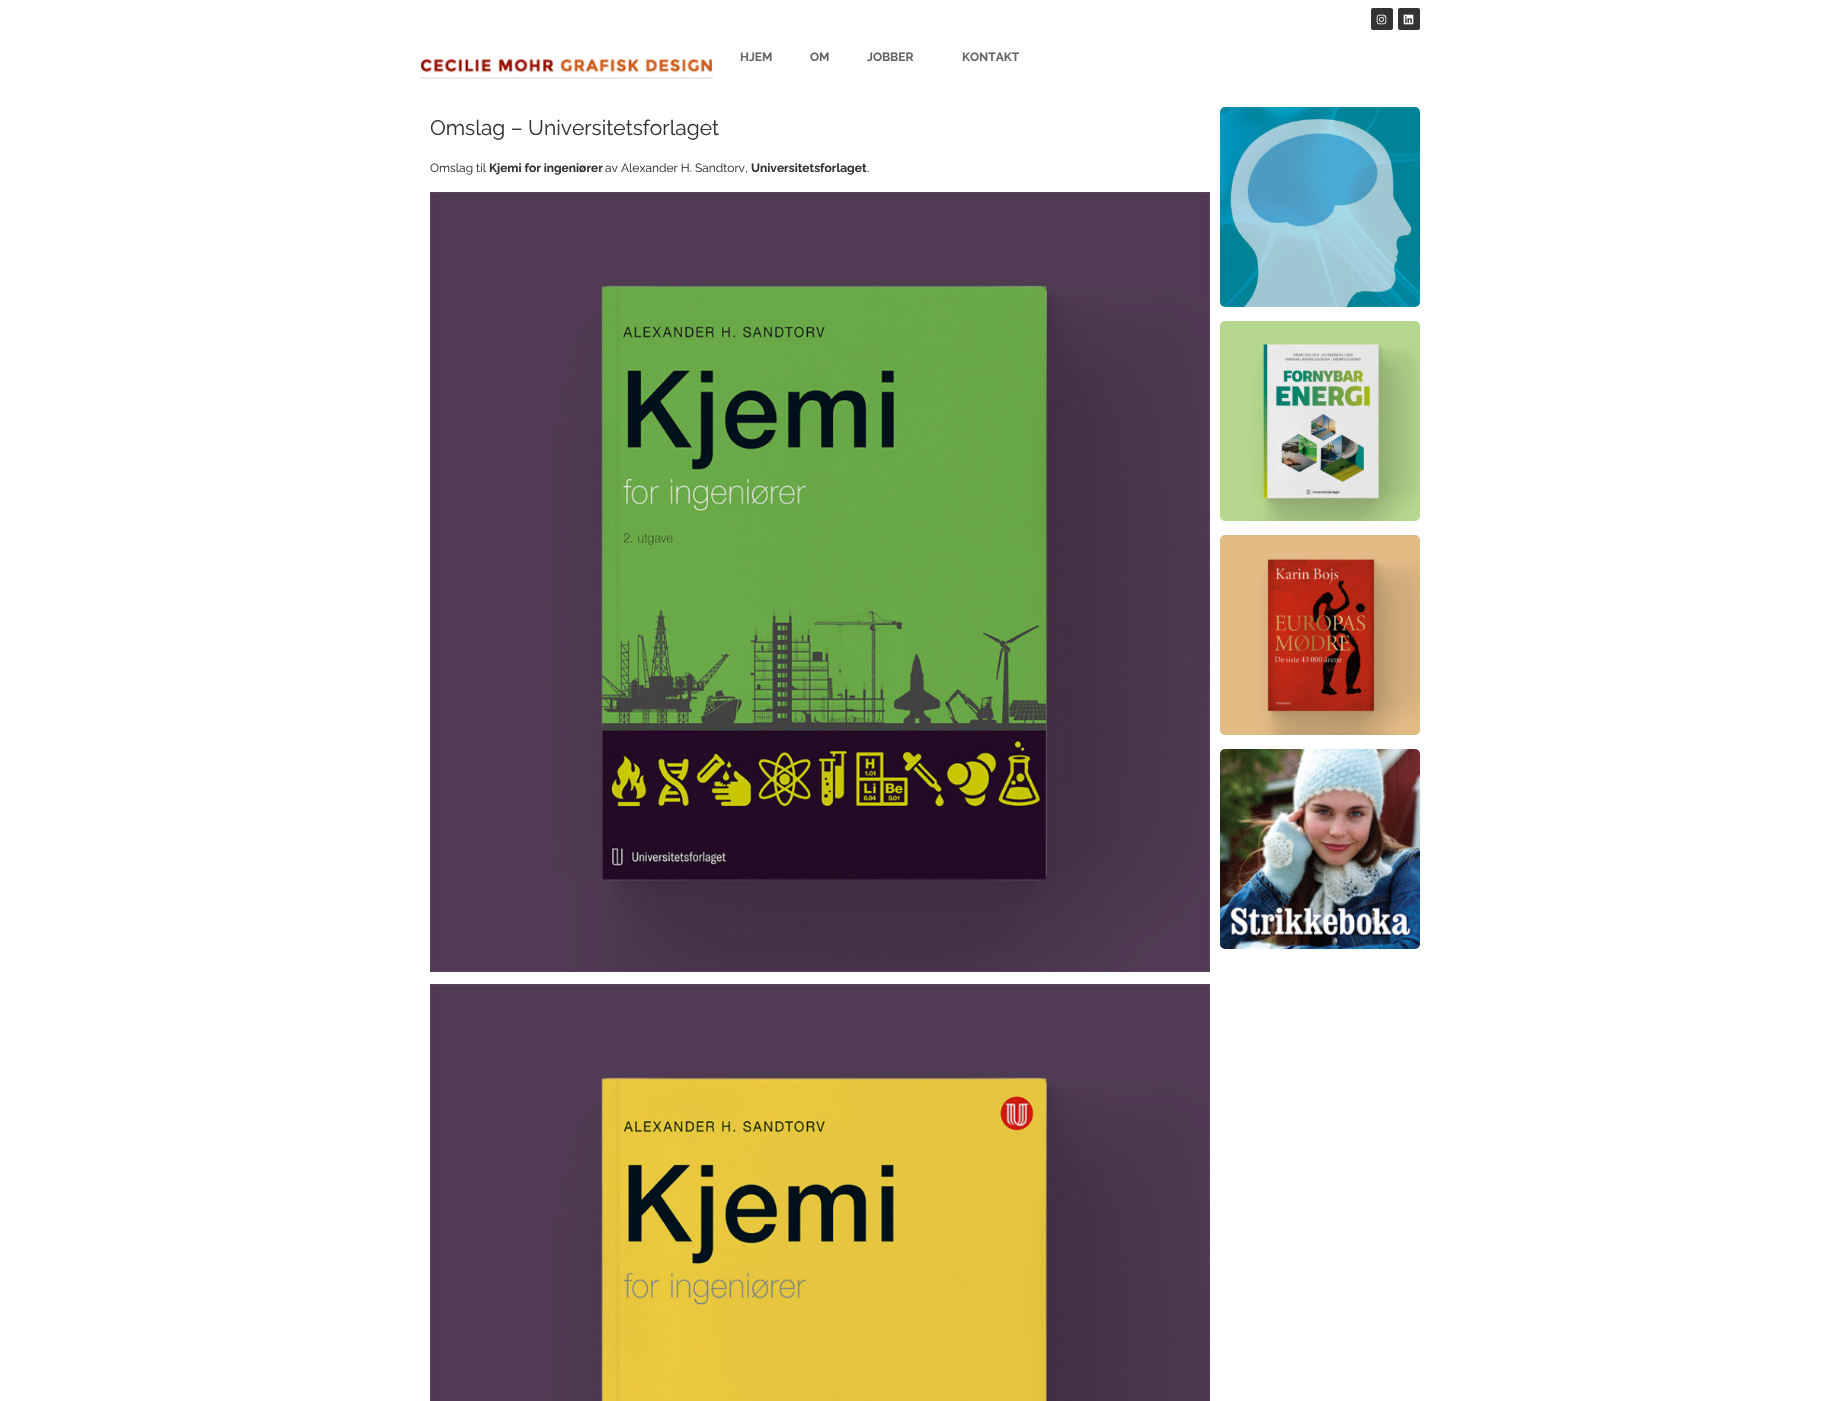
#include "include/core/SkBlurTypes.h"
#include "include/core/SkCanvas.h"
#include "include/core/SkData.h"
#include "include/core/SkFont.h"
#include "include/core/SkFontMgr.h"
#include "include/core/SkImage.h"
#include "include/core/SkMaskFilter.h"
#include "include/core/SkPaint.h"
#include "include/core/SkPathBuilder.h"
#include "include/core/SkTextBlob.h"
#include "include/effects/SkDashPathEffect.h"
#include "include/effects/SkGradientShader.h"
#include "include/utils/SkParsePath.h"

extern sk_sp<SkFontMgr> fontMgr;

void draw(SkCanvas* canvas) {
    SkPaint p;
    p.setAntiAlias(true);
    auto font = [&](const char* family, int weight, float size, bool italic = false) {
        SkFontStyle style(weight, SkFontStyle::kNormal_Width,
            italic ? SkFontStyle::kItalic_Slant : SkFontStyle::kUpright_Slant);
        SkFont result(fontMgr->matchFamilyStyle(family, style), size);
        result.setSubpixel(true);
        return result;
    };
    auto drawPhoto = [&](const char* path, float l, float t, float r, float b) {
        auto image = SkImages::DeferredFromEncodedData(SkData::MakeFromFileName(path));
        canvas->drawImageRect(image, SkRect::MakeLTRB(l, t, r, b), SkSamplingOptions());
    };
    canvas->clear(0xFFFFFFFF);
    p.setColor(0xFF333333);
    canvas->drawRoundRect(SkRect::MakeLTRB(1371, 8, 1393, 30), 2, 2, p);
    drawPhoto("media/1.png", 1376, 14, 1387, 25);
    canvas->drawRoundRect(SkRect::MakeLTRB(1398, 8, 1420, 30), 2, 2, p);
    drawPhoto("media/2.png", 1403, 14, 1414, 25);
    auto font1 = font("Raleway", 700, 12);
    p.setColor(0xFF666666);
    {
        const struct { const char* s; float x, y; } items[] = {
            {"HJEM", 740, 61},
            {"OM", 810, 61},
            {"JOBBER", 867, 61},
            {"KONTAKT", 962, 61},
        };
        for (auto [s, x, y] : items) {
            canvas->drawString(s, x, y, font1, p);
        }
    }
    drawPhoto("media/3.png", 420, 58, 713, 79);
    auto font2 = font("Raleway", 400, 21);
    p.setColor(0xFF333333);
    canvas->drawString("Omslag – Universitetsforlaget", 430, 135, font2, p);
    auto font3 = font("Raleway", 400, 12);
    canvas->drawString("Omslag til", 430, 172, font3, p);
    canvas->drawString("Kjemi for ingeniører", 489, 172, font1, p);
    canvas->drawString("av Alexander H. Sandtorv,", 605, 172, font3, p);
    canvas->drawString("Universitetsforlaget", 751, 172, font1, p);
    canvas->drawString(".", 867, 172, font3, p);
    drawPhoto("media/4.png", 430, 192, 1210, 972);
    drawPhoto("media/5.png", 430, 984, 1210, 1401);
    drawPhoto("media/6.png", 1220, 107, 1420, 307);
    drawPhoto("media/7.png", 1220, 321, 1420, 521);
    drawPhoto("media/8.png", 1220, 535, 1420, 735);
    drawPhoto("media/9.png", 1220, 749, 1420, 949);
}
